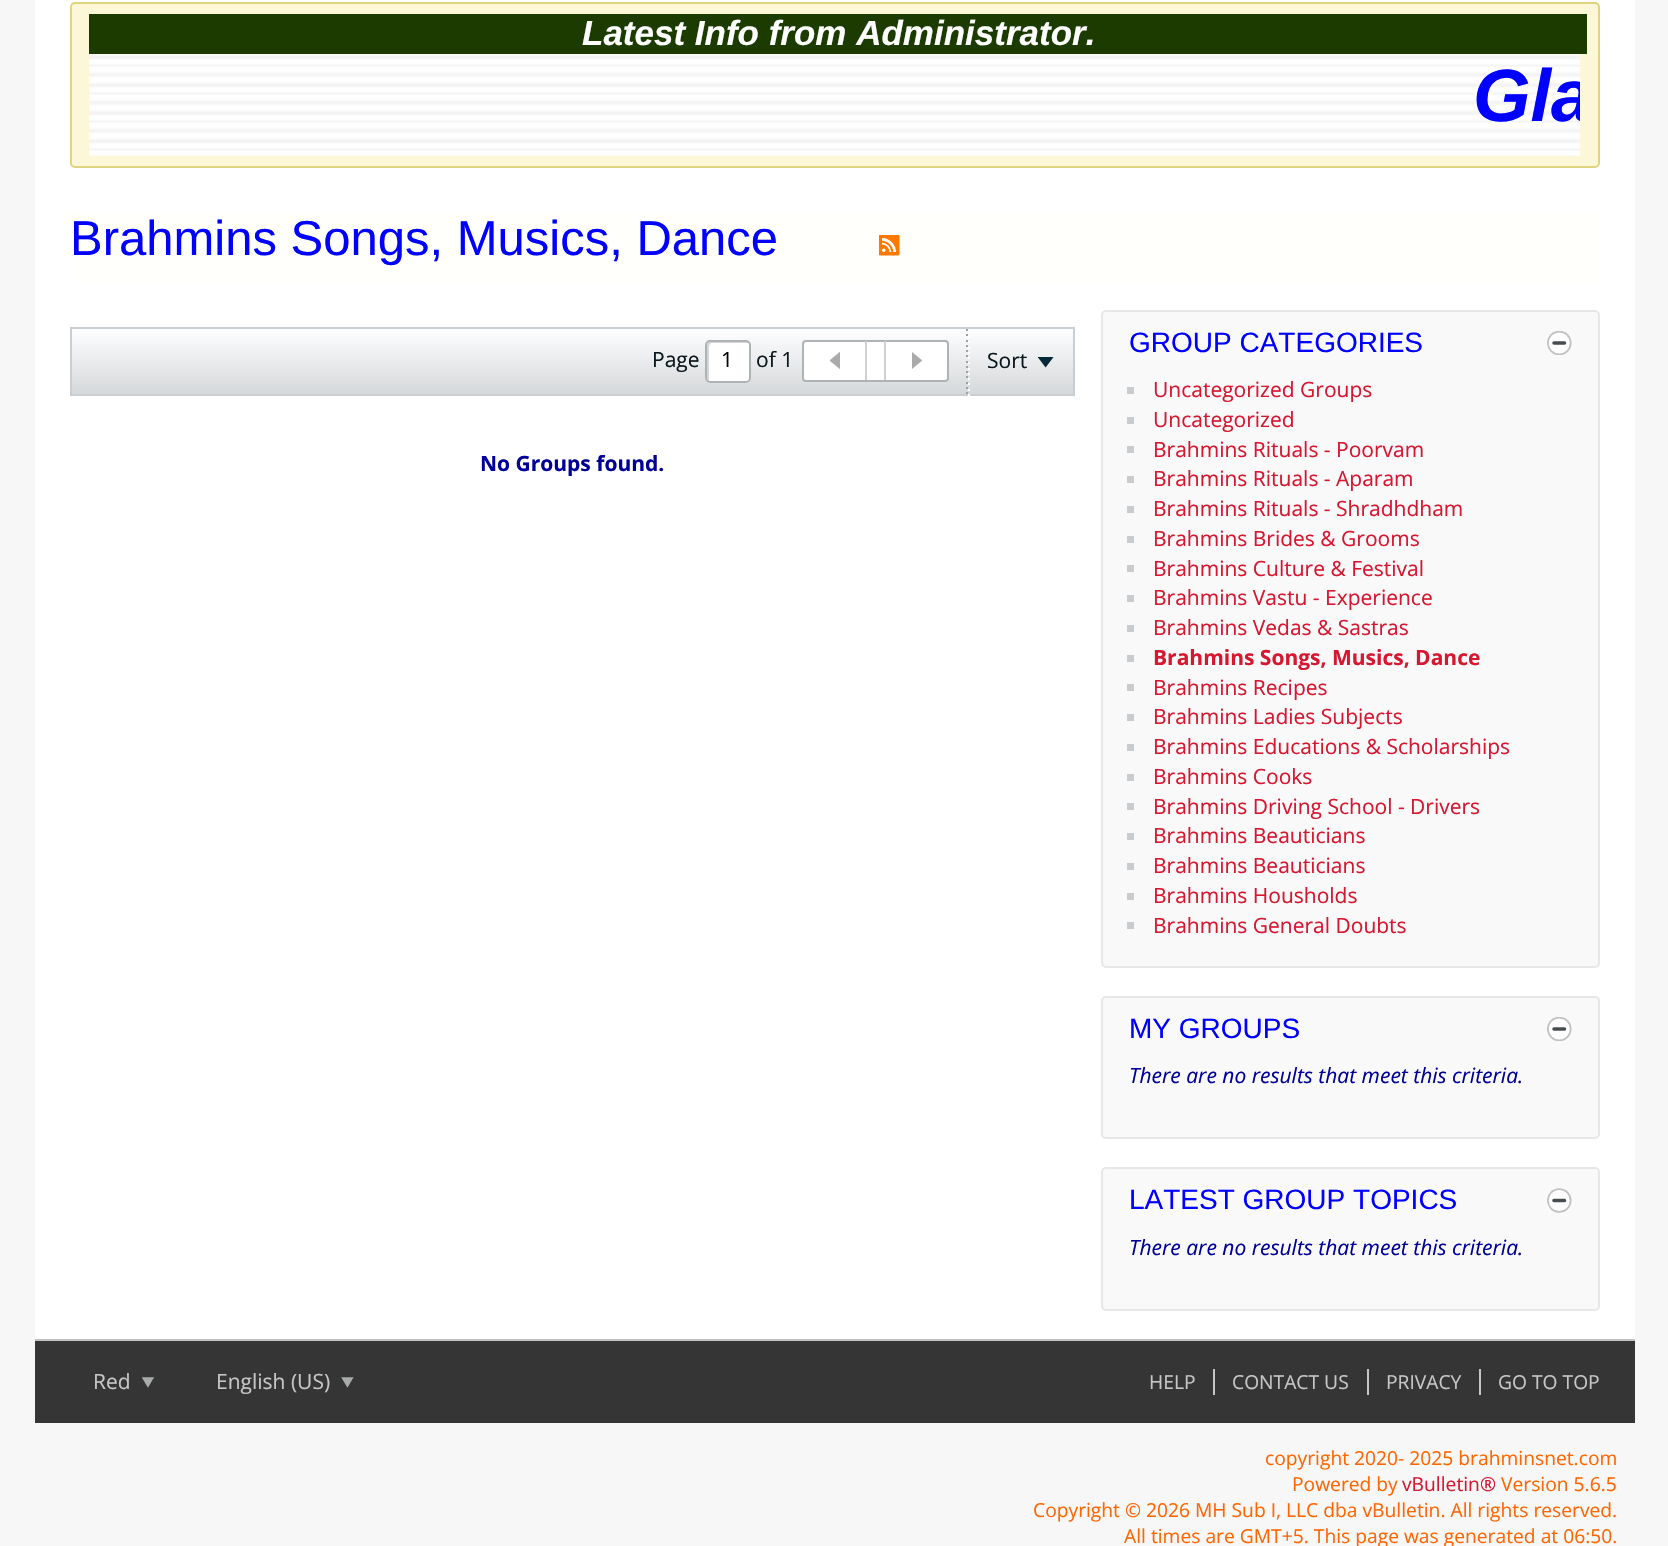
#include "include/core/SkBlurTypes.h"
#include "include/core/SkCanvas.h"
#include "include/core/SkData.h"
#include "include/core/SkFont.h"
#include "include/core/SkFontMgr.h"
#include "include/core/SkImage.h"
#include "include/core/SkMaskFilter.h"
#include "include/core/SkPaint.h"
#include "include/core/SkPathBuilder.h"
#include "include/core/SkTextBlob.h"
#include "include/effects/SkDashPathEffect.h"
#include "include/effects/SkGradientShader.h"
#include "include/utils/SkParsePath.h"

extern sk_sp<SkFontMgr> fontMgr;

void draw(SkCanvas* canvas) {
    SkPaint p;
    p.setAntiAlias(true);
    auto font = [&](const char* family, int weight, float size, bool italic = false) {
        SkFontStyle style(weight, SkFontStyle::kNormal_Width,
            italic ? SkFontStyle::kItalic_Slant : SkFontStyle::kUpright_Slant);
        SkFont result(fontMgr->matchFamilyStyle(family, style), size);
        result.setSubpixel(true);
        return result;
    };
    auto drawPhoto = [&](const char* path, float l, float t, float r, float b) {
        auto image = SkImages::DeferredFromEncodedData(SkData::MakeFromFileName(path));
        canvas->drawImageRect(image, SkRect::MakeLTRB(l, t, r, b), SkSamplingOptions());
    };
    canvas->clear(0xFFF7F7F7);
    p.setColor(0xFFFFFFFF);
    canvas->drawRect(SkRect::MakeLTRB(35, 0, 1635, 1339), p);
    p.setColor(0xFFFCF7D7);
    canvas->drawRoundRect(SkRect::MakeLTRB(71, 3, 1599, 167), 4, 4, p);
    p.setStyle(SkPaint::kStroke_Style);
    p.setStrokeWidth(2);
    p.setColor(0xFFE1D47E);
    canvas->drawRoundRect(SkRect::MakeLTRB(71, 3, 1599, 167), 4, 4, p);
    p.setStyle(SkPaint::kFill_Style);
    p.setColor(0xFF1C3B00);
    canvas->drawRect(SkRect::MakeLTRB(89, 14, 1587, 54), p);
    auto font1 = font("Liberation Sans", 700, 35, true);
    p.setColor(0xFFFFFFFF);
    canvas->drawString("Latest Info from Administrator.", 582, 45, font1, p);
    drawPhoto("media/1.png", 89, 54, 1581, 156);
    canvas->save();
    canvas->clipRect(SkRect::MakeLTRB(89, 54, 1580, 138));
    auto font2 = font("Liberation Sans", 700, 74, true);
    p.setColor(0xFF0000FF);
    canvas->drawString("Gla", 1473, 121, font2, p);
    canvas->restore();
    p.setColor(0xFFFFFFFC);
    canvas->drawRoundRect(SkRect::MakeLTRB(70, 212, 1600, 282), 5, 5, p);
    auto font3 = font("Liberation Sans", 400, 49);
    p.setColor(0xFF0000FF);
    canvas->drawString("Brahmins Songs, Musics, Dance", 70, 255, font3, p);
    drawPhoto("media/2.png", 879, 235, 900, 256);
    {
        const SkColor colors[] = {0xFFFEFEFF, 0xFFD5D8DA};
        const float stops[] = {0, 1};
        const SkPoint ends[] = {{572, 329}, {572, 394}};
        p.setShader(SkGradientShader::MakeLinear(ends, colors, stops, 2, SkTileMode::kClamp));
        p.setAlpha(255);
    }
    canvas->drawRect(SkRect::MakeLTRB(72, 331, 1073, 394), p);
    p.setStyle(SkPaint::kStroke_Style);
    p.setShader(nullptr);
    p.setColor(0xFFC9CED2);
    canvas->drawRect(SkRect::MakeLTRB(71, 328, 1074, 395), p);
    auto font4 = font("Open Sans", 400, 21);
    p.setStyle(SkPaint::kFill_Style);
    p.setColor(0xFF09161B);
    canvas->drawString("Page", 652, 367, font4, p);
    p.setColor(0xFFFFFFFF);
    canvas->drawRoundRect(SkRect::MakeLTRB(705, 340, 751, 383), 5, 5, p);
    p.setColor(0xFFD5D5D5);
    canvas->drawPath(SkPathBuilder().moveTo(712, 343).lineTo(747, 343).lineTo(749, 343).cubicTo(748, 342, 747, 341, 745, 341).lineTo(711, 341).cubicTo(709, 341, 707, 343, 707, 345).lineTo(707, 378).cubicTo(707, 380, 708, 381, 709, 382).lineTo(709, 352).cubicTo(709, 350, 708, 343, 712, 343).close().detach(), p);
    p.setStyle(SkPaint::kStroke_Style);
    p.setColor(0xFFAEB3B6);
    canvas->drawRoundRect(SkRect::MakeLTRB(706, 341, 750, 382), 4, 4, p);
    p.setStyle(SkPaint::kFill_Style);
    p.setColor(0xFF000000);
    canvas->drawString("1", 721, 367, font4, p);
    p.setColor(0xFF09161B);
    canvas->drawString("of 1", 756, 367, font4, p);
    p.setColor(0xFFFFFFFF);
    canvas->drawRoundRect(SkRect::MakeLTRB(803, 341, 948, 381), 3, 3, p);
    p.setStyle(SkPaint::kStroke_Style);
    p.setColor(0xFFAEB3B6);
    canvas->drawRoundRect(SkRect::MakeLTRB(803, 341, 948, 381), 3, 3, p);
    p.setStyle(SkPaint::kFill_Style);
    p.setColor(0xFFCDD1D4);
    canvas->drawRect(SkRect::MakeLTRB(865, 341, 867, 380), p);
    drawPhoto("media/3.png", 830, 352, 840, 369);
    canvas->drawRect(SkRect::MakeLTRB(884, 341, 886, 380), p);
    drawPhoto("media/4.png", 912, 352, 922, 369);
    {
        const struct { float l, t, r, b; SkColor color; } items[] = {
            {966, 329, 968, 331, 0xFF9BA3A9},
            {966, 334, 968, 336, 0xFF9BA3A9},
            {966, 340, 968, 342, 0xFF9BA3A9},
            {966, 345, 968, 347, 0xFF9BA3A9},
            {966, 350, 968, 352, 0xFF9BA3A9},
            {966, 355, 968, 357, 0xFF9BA3A9},
            {966, 361, 968, 363, 0xFF9BA3A9},
            {966, 366, 968, 368, 0xFF9BA3A9},
            {966, 371, 968, 373, 0xFF9BA3A9},
            {966, 376, 968, 378, 0xFF9BA3A9},
            {966, 382, 968, 384, 0xFF9BA3A9},
            {966, 387, 968, 389, 0xFF9BA3A9},
            {966, 392, 968, 394, 0xFF9BA3A9},
            {968, 331, 970, 333, 0xFFFFFFFF},
            {968, 336, 970, 338, 0xFFFFFFFF},
            {968, 341, 970, 343, 0xFFFFFFFF},
            {968, 347, 970, 349, 0xFFFFFFFF},
            {968, 352, 970, 354, 0xFFFFFFFF},
            {968, 357, 970, 359, 0xFFFFFFFF},
            {968, 362, 970, 364, 0xFFFFFFFF},
            {968, 368, 970, 370, 0xFFFFFFFF},
            {968, 373, 970, 375, 0xFFFFFFFF},
            {968, 378, 970, 380, 0xFFFFFFFF},
            {968, 383, 970, 385, 0xFFFFFFFF},
            {968, 389, 970, 391, 0xFFFFFFFF},
            {968, 394, 970, 396, 0xFFFFFFFF},
        };
        for (auto [l, t, r, b, color] : items) {
            p.setColor(color);
            canvas->drawRect(SkRect::MakeLTRB(l, t, r, b), p);
        }
    }
    p.setColor(0xFF09161B);
    canvas->drawString("Sort", 987, 368, font4, p);
    drawPhoto("media/5.png", 1038, 357, 1054, 368);
    auto font5 = font("Open Sans", 700, 21);
    p.setColor(0xFF000099);
    canvas->drawString("No Groups found.", 480, 471, font5, p);
    p.setColor(0xFFF9F9F9);
    canvas->drawRoundRect(SkRect::MakeLTRB(1102, 311, 1599, 967), 4, 4, p);
    p.setStyle(SkPaint::kStroke_Style);
    p.setColor(0xFFE7E7E7);
    canvas->drawRoundRect(SkRect::MakeLTRB(1102, 311, 1599, 967), 4, 4, p);
    auto font6 = font("Liberation Sans", 400, 28);
    p.setStyle(SkPaint::kFill_Style);
    p.setColor(0xFF0000FF);
    canvas->drawString("GROUP CATEGORIES", 1129, 352, font6, p);
    drawPhoto("media/6.png", 1547, 331, 1572, 355);
    p.setColor(0xFFC8CCCE);
    canvas->drawRect(SkRect::MakeLTRB(1127, 387, 1134, 394), p);
    p.setColor(0xFFD71730);
    canvas->drawString("Uncategorized Groups", 1153, 397, font4, p);
    p.setColor(0xFFC8CCCE);
    canvas->drawRect(SkRect::MakeLTRB(1127, 417, 1134, 424), p);
    p.setColor(0xFFD71730);
    canvas->drawString("Uncategorized", 1153, 427, font4, p);
    p.setColor(0xFFC8CCCE);
    canvas->drawRect(SkRect::MakeLTRB(1127, 446, 1134, 453), p);
    p.setColor(0xFFD71730);
    canvas->drawString("Brahmins Rituals - Poorvam", 1153, 457, font4, p);
    p.setColor(0xFFC8CCCE);
    canvas->drawRect(SkRect::MakeLTRB(1127, 476, 1134, 483), p);
    p.setColor(0xFFD71730);
    canvas->drawString("Brahmins Rituals - Aparam", 1153, 486, font4, p);
    p.setColor(0xFFC8CCCE);
    canvas->drawRect(SkRect::MakeLTRB(1127, 506, 1134, 513), p);
    p.setColor(0xFFD71730);
    canvas->drawString("Brahmins Rituals - Shradhdham", 1153, 516, font4, p);
    p.setColor(0xFFC8CCCE);
    canvas->drawRect(SkRect::MakeLTRB(1127, 536, 1134, 543), p);
    p.setColor(0xFFD71730);
    canvas->drawString("Brahmins Brides & Grooms", 1153, 546, font4, p);
    p.setColor(0xFFC8CCCE);
    canvas->drawRect(SkRect::MakeLTRB(1127, 565, 1134, 572), p);
    p.setColor(0xFFD71730);
    canvas->drawString("Brahmins Culture & Festival", 1153, 576, font4, p);
    p.setColor(0xFFC8CCCE);
    canvas->drawRect(SkRect::MakeLTRB(1127, 595, 1134, 602), p);
    p.setColor(0xFFD71730);
    canvas->drawString("Brahmins Vastu - Experience", 1153, 605, font4, p);
    p.setColor(0xFFC8CCCE);
    canvas->drawRect(SkRect::MakeLTRB(1127, 625, 1134, 632), p);
    p.setColor(0xFFD71730);
    canvas->drawString("Brahmins Vedas & Sastras", 1153, 635, font4, p);
    p.setColor(0xFFC8CCCE);
    canvas->drawRect(SkRect::MakeLTRB(1127, 655, 1134, 662), p);
    p.setColor(0xFFD71730);
    canvas->drawString("Brahmins Songs, Musics, Dance", 1153, 665, font5, p);
    p.setColor(0xFFC8CCCE);
    canvas->drawRect(SkRect::MakeLTRB(1127, 684, 1134, 691), p);
    p.setColor(0xFFD71730);
    canvas->drawString("Brahmins Recipes", 1153, 695, font4, p);
    p.setColor(0xFFC8CCCE);
    canvas->drawRect(SkRect::MakeLTRB(1127, 714, 1134, 721), p);
    p.setColor(0xFFD71730);
    canvas->drawString("Brahmins Ladies Subjects", 1153, 724, font4, p);
    p.setColor(0xFFC8CCCE);
    canvas->drawRect(SkRect::MakeLTRB(1127, 744, 1134, 751), p);
    p.setColor(0xFFD71730);
    canvas->drawString("Brahmins Educations & Scholarships", 1153, 754, font4, p);
    p.setColor(0xFFC8CCCE);
    canvas->drawRect(SkRect::MakeLTRB(1127, 774, 1134, 781), p);
    p.setColor(0xFFD71730);
    canvas->drawString("Brahmins Cooks", 1153, 784, font4, p);
    p.setColor(0xFFC8CCCE);
    canvas->drawRect(SkRect::MakeLTRB(1127, 803, 1134, 810), p);
    p.setColor(0xFFD71730);
    canvas->drawString("Brahmins Driving School - Drivers", 1153, 814, font4, p);
    p.setColor(0xFFC8CCCE);
    canvas->drawRect(SkRect::MakeLTRB(1127, 833, 1134, 840), p);
    p.setColor(0xFFD71730);
    canvas->drawString("Brahmins Beauticians", 1153, 843, font4, p);
    p.setColor(0xFFC8CCCE);
    canvas->drawRect(SkRect::MakeLTRB(1127, 863, 1134, 870), p);
    p.setColor(0xFFD71730);
    canvas->drawString("Brahmins Beauticians", 1153, 873, font4, p);
    p.setColor(0xFFC8CCCE);
    canvas->drawRect(SkRect::MakeLTRB(1127, 893, 1134, 900), p);
    p.setColor(0xFFD71730);
    canvas->drawString("Brahmins Housholds", 1153, 903, font4, p);
    p.setColor(0xFFC8CCCE);
    canvas->drawRect(SkRect::MakeLTRB(1127, 922, 1134, 929), p);
    p.setColor(0xFFD71730);
    canvas->drawString("Brahmins General Doubts", 1153, 933, font4, p);
    p.setColor(0xFFF9F9F9);
    canvas->drawRoundRect(SkRect::MakeLTRB(1102, 997, 1599, 1138), 4, 4, p);
    p.setStyle(SkPaint::kStroke_Style);
    p.setColor(0xFFE7E7E7);
    canvas->drawRoundRect(SkRect::MakeLTRB(1102, 997, 1599, 1138), 4, 4, p);
    p.setStyle(SkPaint::kFill_Style);
    p.setColor(0xFF0000FF);
    canvas->drawString("MY GROUPS", 1129, 1038, font6, p);
    drawPhoto("media/6.png", 1547, 1017, 1572, 1041);
    auto font7 = font("Open Sans", 400, 21, true);
    p.setColor(0xFF000099);
    canvas->drawString("There are no results that meet this criteria.", 1129, 1083, font7, p);
    p.setColor(0xFFF9F9F9);
    canvas->drawRoundRect(SkRect::MakeLTRB(1102, 1168, 1599, 1310), 4, 4, p);
    p.setStyle(SkPaint::kStroke_Style);
    p.setColor(0xFFE7E7E7);
    canvas->drawRoundRect(SkRect::MakeLTRB(1102, 1168, 1599, 1310), 4, 4, p);
    p.setStyle(SkPaint::kFill_Style);
    p.setColor(0xFF0000FF);
    canvas->drawString("LATEST GROUP TOPICS", 1129, 1209, font6, p);
    drawPhoto("media/7.png", 1547, 1188, 1572, 1213);
    p.setColor(0xFF000099);
    canvas->drawString("There are no results that meet this criteria.", 1129, 1255, font7, p);
    p.setColor(0xFF353535);
    canvas->drawRect(SkRect::MakeLTRB(35, 1341, 1635, 1423), p);
    p.setColor(0xFFC2C2C2);
    canvas->drawRect(SkRect::MakeLTRB(35, 1339, 1635, 1341), p);
    p.setColor(0xFFC6C6C6);
    canvas->drawString("Red", 93, 1389, font4, p);
    drawPhoto("media/8.png", 142, 1377, 154, 1388);
    canvas->drawString("English (US)", 216, 1389, font4, p);
    drawPhoto("media/9.png", 341, 1377, 354, 1388);
    auto font8 = font("Open Sans", 400, 19.25f);
    canvas->drawString("HELP", 1149, 1389, font8, p);
    canvas->drawString("CONTACT US", 1232, 1389, font8, p);
    canvas->drawRect(SkRect::MakeLTRB(1213, 1369, 1215, 1395), p);
    canvas->drawString("PRIVACY", 1386, 1389, font8, p);
    canvas->drawRect(SkRect::MakeLTRB(1367, 1369, 1369, 1395), p);
    canvas->drawString("GO TO TOP", 1498, 1389, font8, p);
    canvas->drawRect(SkRect::MakeLTRB(1479, 1369, 1481, 1395), p);
    p.setColor(0xFFFF6600);
    canvas->drawString("copyright 2020- 2025 brahminsnet.com", 1265, 1465, font8, p);
    canvas->drawString("Powered by", 1292, 1491, font8, p);
    p.setColor(0xFFD71730);
    canvas->drawString("vBulletin®", 1402, 1491, font8, p);
    p.setColor(0xFFFF6600);
    {
        const struct { const char* s; float x, y; } items[] = {
            {"Version 5.6.5", 1501, 1491},
            {"Copyright © 2026 MH Sub I, LLC dba vBulletin. All rights reserved.", 1033, 1517},
            {"All times are GMT+5. This page was generated at 06:50.", 1124, 1543},
        };
        for (auto [s, x, y] : items) {
            canvas->drawString(s, x, y, font8, p);
        }
    }
}
